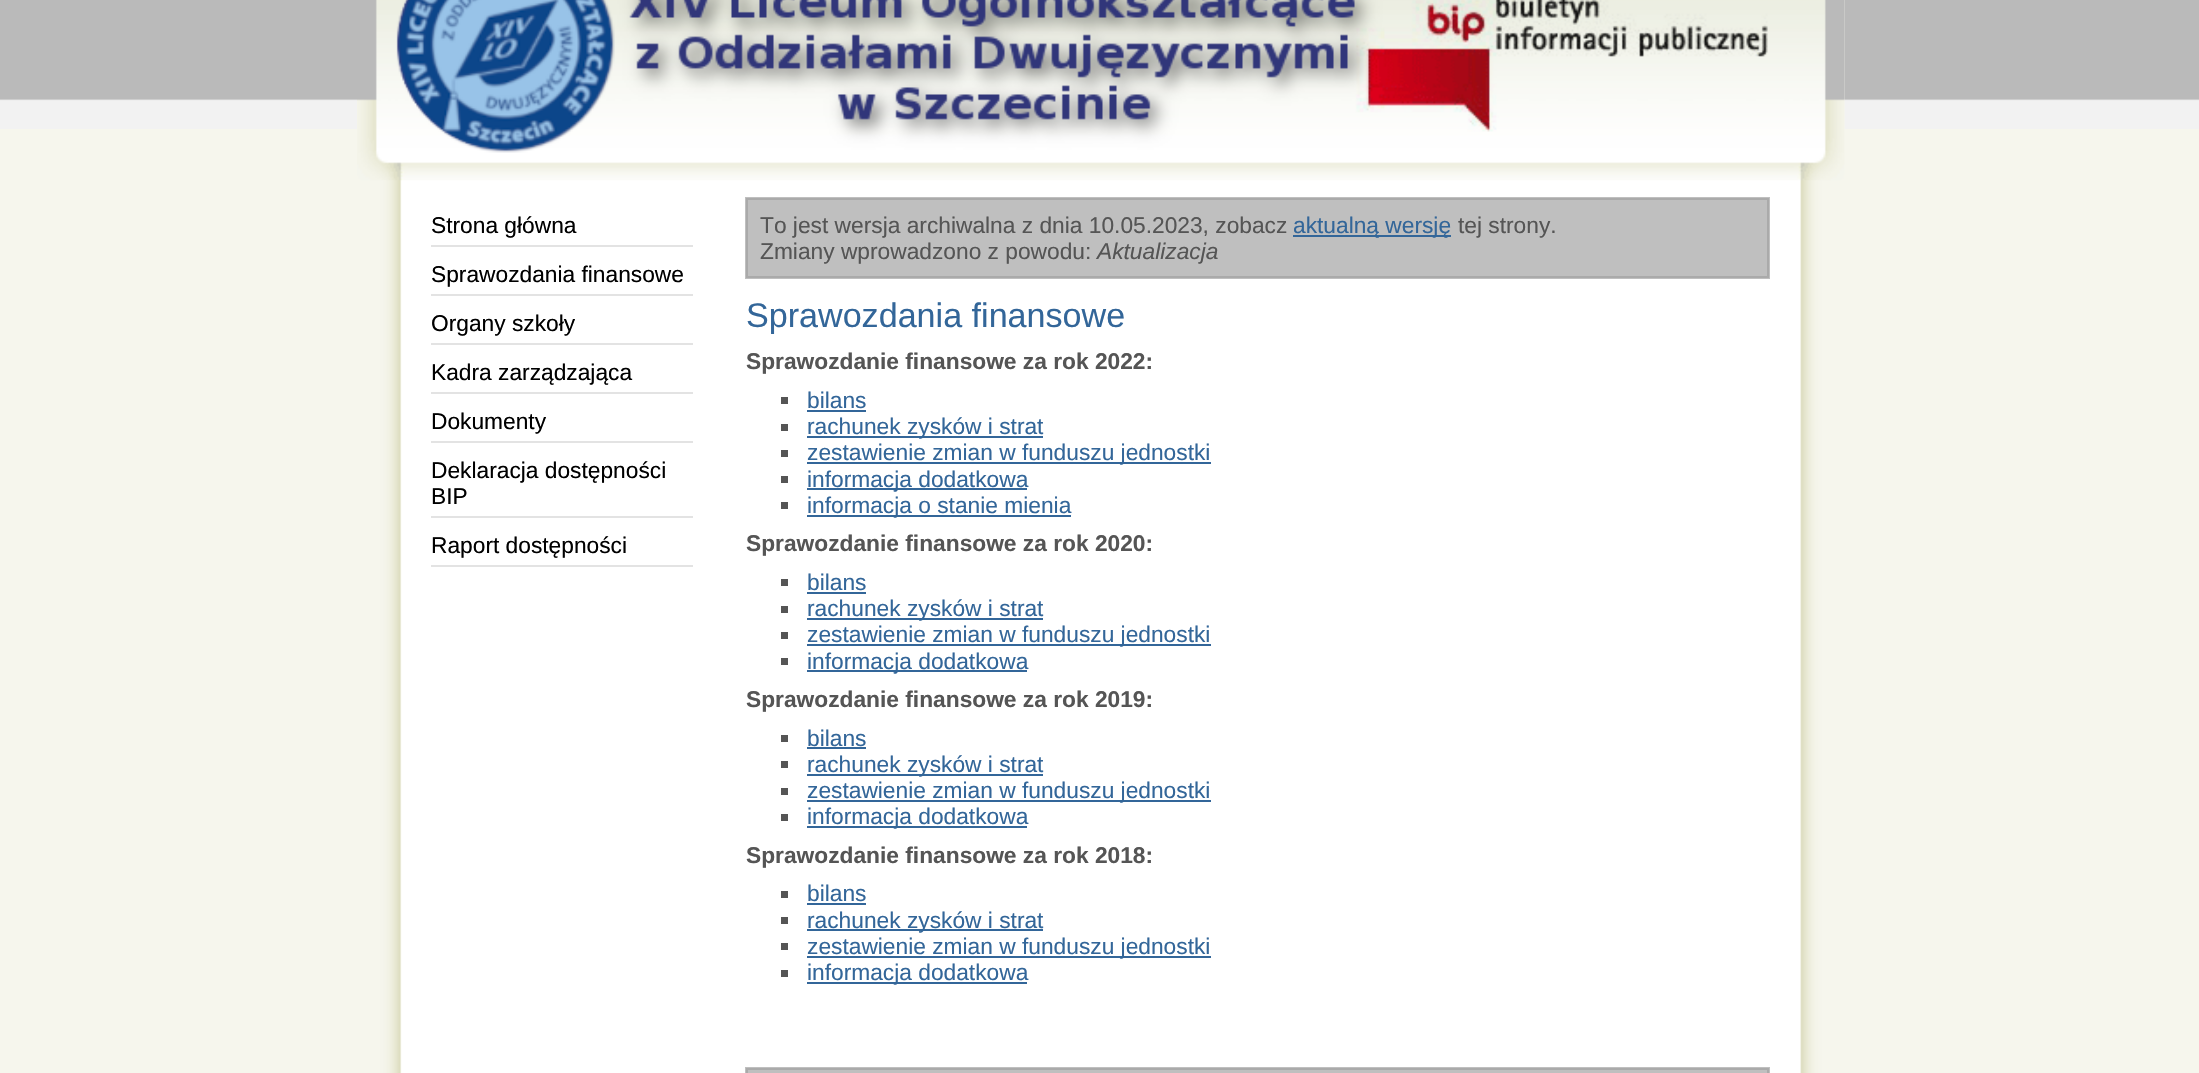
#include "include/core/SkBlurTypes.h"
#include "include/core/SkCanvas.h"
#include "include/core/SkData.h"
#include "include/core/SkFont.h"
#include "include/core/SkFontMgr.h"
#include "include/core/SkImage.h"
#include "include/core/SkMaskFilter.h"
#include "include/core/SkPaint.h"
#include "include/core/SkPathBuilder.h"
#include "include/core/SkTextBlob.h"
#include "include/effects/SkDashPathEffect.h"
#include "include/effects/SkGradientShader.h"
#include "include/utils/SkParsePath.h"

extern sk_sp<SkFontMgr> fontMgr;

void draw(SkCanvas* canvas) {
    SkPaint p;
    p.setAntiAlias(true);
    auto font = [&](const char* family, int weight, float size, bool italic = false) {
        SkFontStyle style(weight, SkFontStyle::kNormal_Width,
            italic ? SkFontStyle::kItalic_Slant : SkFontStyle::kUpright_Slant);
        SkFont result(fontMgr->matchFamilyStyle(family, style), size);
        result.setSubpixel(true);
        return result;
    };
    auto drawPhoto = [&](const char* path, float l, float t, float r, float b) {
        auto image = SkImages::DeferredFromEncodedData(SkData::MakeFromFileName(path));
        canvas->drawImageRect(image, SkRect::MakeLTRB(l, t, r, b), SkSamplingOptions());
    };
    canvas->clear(0xFFF6F6ED);
    drawPhoto("media/1.png", 0, 0, 2199, 129);
    drawPhoto("media/2.png", 357, 0, 1845, 1073);
    drawPhoto("media/3.png", 357, 0, 1845, 181);
    p.setColor(0xFFE3E3E3);
    canvas->drawRect(SkRect::MakeLTRB(431, 245, 693, 247), p);
    auto font1 = font("Liberation Sans", 400, 22.75f);
    p.setColor(0xFF000000);
    canvas->drawString("Strona główna", 431, 233, font1, p);
    p.setColor(0xFFE3E3E3);
    canvas->drawRect(SkRect::MakeLTRB(431, 294, 693, 296), p);
    p.setColor(0xFF000000);
    canvas->drawString("Sprawozdania finansowe", 431, 282, font1, p);
    p.setColor(0xFFE3E3E3);
    canvas->drawRect(SkRect::MakeLTRB(431, 343, 693, 345), p);
    p.setColor(0xFF000000);
    canvas->drawString("Organy szkoły", 431, 331, font1, p);
    p.setColor(0xFFE3E3E3);
    canvas->drawRect(SkRect::MakeLTRB(431, 392, 693, 394), p);
    p.setColor(0xFF000000);
    canvas->drawString("Kadra zarządzająca", 431, 380, font1, p);
    p.setColor(0xFFE3E3E3);
    canvas->drawRect(SkRect::MakeLTRB(431, 441, 693, 443), p);
    p.setColor(0xFF000000);
    canvas->drawString("Dokumenty", 431, 429, font1, p);
    p.setColor(0xFFE3E3E3);
    canvas->drawRect(SkRect::MakeLTRB(431, 516, 693, 518), p);
    p.setColor(0xFF000000);
    canvas->drawString("Deklaracja dostępności", 431, 478, font1, p);
    canvas->drawString("BIP", 431, 504, font1, p);
    p.setColor(0xFFE3E3E3);
    canvas->drawRect(SkRect::MakeLTRB(431, 565, 693, 567), p);
    p.setColor(0xFF000000);
    canvas->drawString("Raport dostępności", 431, 553, font1, p);
    p.setColor(0xFFBFBFBF);
    canvas->drawRect(SkRect::MakeLTRB(745, 197, 1770, 279), p);
    p.setStyle(SkPaint::kStroke_Style);
    p.setStrokeWidth(2);
    p.setColor(0xFFAAAAAA);
    canvas->drawRect(SkRect::MakeLTRB(747, 199, 1768, 277), p);
    p.setStyle(SkPaint::kFill_Style);
    p.setColor(0xFF555555);
    canvas->drawString("To jest wersja archiwalna z dnia 10.05.2023, zobacz", 760, 233, font1, p);
    p.setColor(0xFF336699);
    canvas->drawRect(SkRect::MakeLTRB(1293, 235, 1451, 237), p);
    canvas->drawString("aktualną wersję", 1293, 233, font1, p);
    p.setColor(0xFF555555);
    canvas->drawString("tej strony.", 1458, 233, font1, p);
    canvas->drawString("Zmiany wprowadzono z powodu:", 760, 259, font1, p);
    auto font2 = font("Liberation Sans", 400, 22.75f, true);
    canvas->drawString("Aktualizacja", 1097, 259, font2, p);
    auto font3 = font("Liberation Sans", 400, 34.1f);
    p.setColor(0xFF336699);
    canvas->drawString("Sprawozdania finansowe", 746, 327, font3, p);
    auto font4 = font("Liberation Sans", 700, 22.75f);
    p.setColor(0xFF555555);
    canvas->drawString("Sprawozdanie finansowe za rok 2022:", 746, 369, font4, p);
    canvas->drawRect(SkRect::MakeLTRB(781, 397, 788, 404), p);
    p.setColor(0xFF336699);
    canvas->drawString("bilans", 807, 408, font1, p);
    {
        const struct { float l, t, r, b; SkColor color; } items[] = {
            {807, 410, 866, 412, 0xFF336699},
            {781, 424, 788, 431, 0xFF555555},
            {807, 436, 1043, 438, 0xFF336699},
        };
        for (auto [l, t, r, b, color] : items) {
            p.setColor(color);
            canvas->drawRect(SkRect::MakeLTRB(l, t, r, b), p);
        }
    }
    canvas->drawString("rachunek zysków i strat", 807, 434, font1, p);
    p.setColor(0xFF555555);
    canvas->drawRect(SkRect::MakeLTRB(781, 450, 788, 457), p);
    p.setColor(0xFF336699);
    canvas->drawRect(SkRect::MakeLTRB(807, 462, 1211, 464), p);
    canvas->drawString("zestawienie zmian w funduszu jednostki", 807, 460, font1, p);
    p.setColor(0xFF555555);
    canvas->drawRect(SkRect::MakeLTRB(781, 476, 788, 483), p);
    p.setColor(0xFF336699);
    canvas->drawRect(SkRect::MakeLTRB(807, 488, 1027, 490), p);
    canvas->drawString("informacja dodatkowa", 807, 487, font1, p);
    p.setColor(0xFF555555);
    canvas->drawRect(SkRect::MakeLTRB(781, 502, 788, 509), p);
    p.setColor(0xFF336699);
    canvas->drawRect(SkRect::MakeLTRB(807, 515, 1071, 517), p);
    canvas->drawString("informacja o stanie mienia", 807, 513, font1, p);
    p.setColor(0xFF555555);
    canvas->drawString("Sprawozdanie finansowe za rok 2020:", 746, 551, font4, p);
    canvas->drawRect(SkRect::MakeLTRB(781, 579, 788, 586), p);
    p.setColor(0xFF336699);
    canvas->drawString("bilans", 807, 590, font1, p);
    {
        const struct { float l, t, r, b; SkColor color; } items[] = {
            {807, 592, 866, 594, 0xFF336699},
            {781, 606, 788, 613, 0xFF555555},
            {807, 618, 1043, 620, 0xFF336699},
        };
        for (auto [l, t, r, b, color] : items) {
            p.setColor(color);
            canvas->drawRect(SkRect::MakeLTRB(l, t, r, b), p);
        }
    }
    canvas->drawString("rachunek zysków i strat", 807, 616, font1, p);
    p.setColor(0xFF555555);
    canvas->drawRect(SkRect::MakeLTRB(781, 632, 788, 639), p);
    p.setColor(0xFF336699);
    canvas->drawRect(SkRect::MakeLTRB(807, 644, 1211, 646), p);
    canvas->drawString("zestawienie zmian w funduszu jednostki", 807, 642, font1, p);
    p.setColor(0xFF555555);
    canvas->drawRect(SkRect::MakeLTRB(781, 658, 788, 665), p);
    p.setColor(0xFF336699);
    canvas->drawRect(SkRect::MakeLTRB(807, 670, 1027, 672), p);
    canvas->drawString("informacja dodatkowa", 807, 669, font1, p);
    p.setColor(0xFF555555);
    canvas->drawString("Sprawozdanie finansowe za rok 2019:", 746, 707, font4, p);
    canvas->drawRect(SkRect::MakeLTRB(781, 735, 788, 742), p);
    p.setColor(0xFF336699);
    canvas->drawString("bilans", 807, 746, font1, p);
    {
        const struct { float l, t, r, b; SkColor color; } items[] = {
            {807, 747, 866, 749, 0xFF336699},
            {781, 761, 788, 768, 0xFF555555},
            {807, 774, 1043, 776, 0xFF336699},
        };
        for (auto [l, t, r, b, color] : items) {
            p.setColor(color);
            canvas->drawRect(SkRect::MakeLTRB(l, t, r, b), p);
        }
    }
    canvas->drawString("rachunek zysków i strat", 807, 772, font1, p);
    p.setColor(0xFF555555);
    canvas->drawRect(SkRect::MakeLTRB(781, 788, 788, 795), p);
    p.setColor(0xFF336699);
    canvas->drawRect(SkRect::MakeLTRB(807, 800, 1211, 802), p);
    canvas->drawString("zestawienie zmian w funduszu jednostki", 807, 798, font1, p);
    p.setColor(0xFF555555);
    canvas->drawRect(SkRect::MakeLTRB(781, 814, 788, 821), p);
    p.setColor(0xFF336699);
    canvas->drawRect(SkRect::MakeLTRB(807, 826, 1027, 828), p);
    canvas->drawString("informacja dodatkowa", 807, 824, font1, p);
    p.setColor(0xFF555555);
    canvas->drawString("Sprawozdanie finansowe za rok 2018:", 746, 863, font4, p);
    canvas->drawRect(SkRect::MakeLTRB(781, 891, 788, 898), p);
    p.setColor(0xFF336699);
    canvas->drawString("bilans", 807, 901, font1, p);
    {
        const struct { float l, t, r, b; SkColor color; } items[] = {
            {807, 903, 866, 905, 0xFF336699},
            {781, 917, 788, 924, 0xFF555555},
            {807, 929, 1043, 931, 0xFF336699},
        };
        for (auto [l, t, r, b, color] : items) {
            p.setColor(color);
            canvas->drawRect(SkRect::MakeLTRB(l, t, r, b), p);
        }
    }
    canvas->drawString("rachunek zysków i strat", 807, 928, font1, p);
    p.setColor(0xFF555555);
    canvas->drawRect(SkRect::MakeLTRB(781, 943, 788, 950), p);
    p.setColor(0xFF336699);
    canvas->drawRect(SkRect::MakeLTRB(807, 956, 1211, 958), p);
    canvas->drawString("zestawienie zmian w funduszu jednostki", 807, 954, font1, p);
    p.setColor(0xFF555555);
    canvas->drawRect(SkRect::MakeLTRB(781, 970, 788, 977), p);
    p.setColor(0xFF336699);
    canvas->drawRect(SkRect::MakeLTRB(807, 982, 1027, 984), p);
    canvas->drawString("informacja dodatkowa", 807, 980, font1, p);
    p.setColor(0xFFBFBFBF);
    canvas->drawRect(SkRect::MakeLTRB(745, 1067, 1770, 1073), p);
    p.setStyle(SkPaint::kStroke_Style);
    p.setColor(0xFFAAAAAA);
    canvas->drawRect(SkRect::MakeLTRB(747, 1069, 1768, 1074), p);
}
